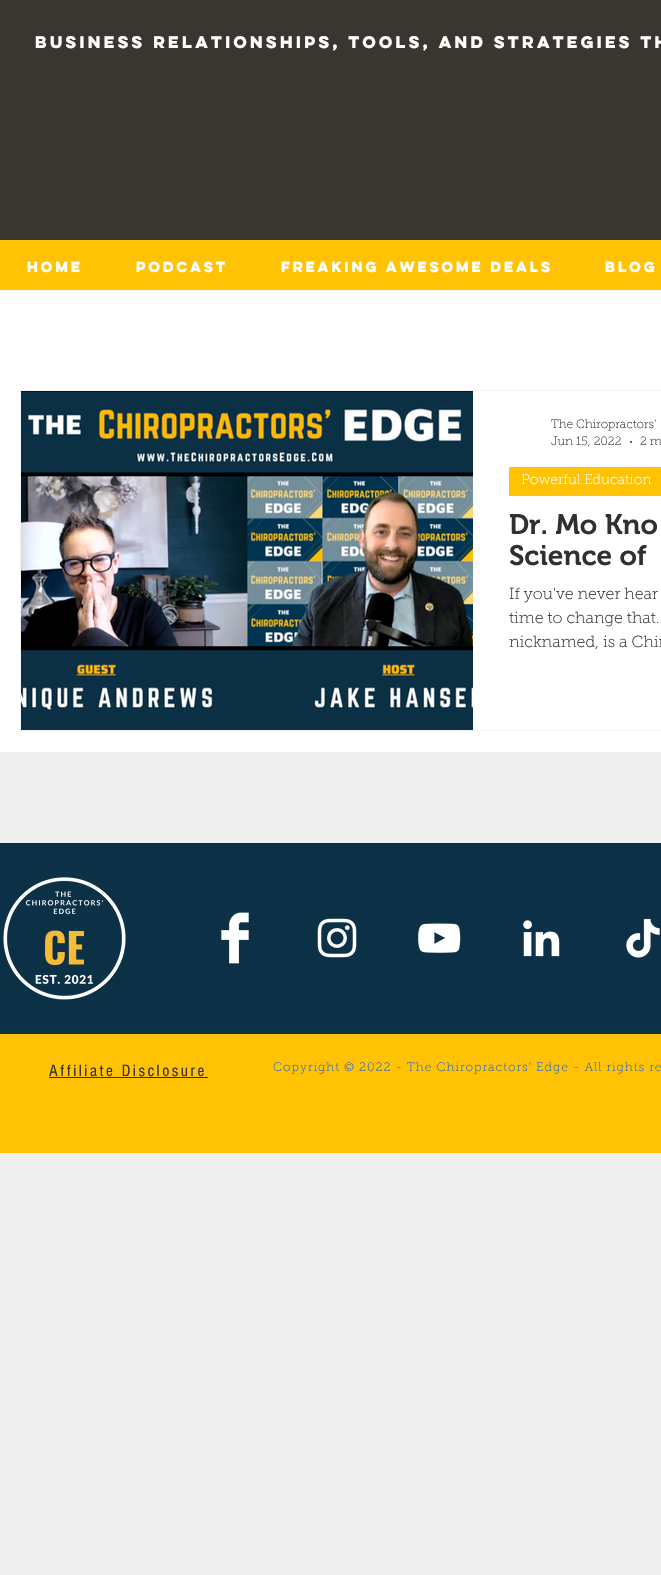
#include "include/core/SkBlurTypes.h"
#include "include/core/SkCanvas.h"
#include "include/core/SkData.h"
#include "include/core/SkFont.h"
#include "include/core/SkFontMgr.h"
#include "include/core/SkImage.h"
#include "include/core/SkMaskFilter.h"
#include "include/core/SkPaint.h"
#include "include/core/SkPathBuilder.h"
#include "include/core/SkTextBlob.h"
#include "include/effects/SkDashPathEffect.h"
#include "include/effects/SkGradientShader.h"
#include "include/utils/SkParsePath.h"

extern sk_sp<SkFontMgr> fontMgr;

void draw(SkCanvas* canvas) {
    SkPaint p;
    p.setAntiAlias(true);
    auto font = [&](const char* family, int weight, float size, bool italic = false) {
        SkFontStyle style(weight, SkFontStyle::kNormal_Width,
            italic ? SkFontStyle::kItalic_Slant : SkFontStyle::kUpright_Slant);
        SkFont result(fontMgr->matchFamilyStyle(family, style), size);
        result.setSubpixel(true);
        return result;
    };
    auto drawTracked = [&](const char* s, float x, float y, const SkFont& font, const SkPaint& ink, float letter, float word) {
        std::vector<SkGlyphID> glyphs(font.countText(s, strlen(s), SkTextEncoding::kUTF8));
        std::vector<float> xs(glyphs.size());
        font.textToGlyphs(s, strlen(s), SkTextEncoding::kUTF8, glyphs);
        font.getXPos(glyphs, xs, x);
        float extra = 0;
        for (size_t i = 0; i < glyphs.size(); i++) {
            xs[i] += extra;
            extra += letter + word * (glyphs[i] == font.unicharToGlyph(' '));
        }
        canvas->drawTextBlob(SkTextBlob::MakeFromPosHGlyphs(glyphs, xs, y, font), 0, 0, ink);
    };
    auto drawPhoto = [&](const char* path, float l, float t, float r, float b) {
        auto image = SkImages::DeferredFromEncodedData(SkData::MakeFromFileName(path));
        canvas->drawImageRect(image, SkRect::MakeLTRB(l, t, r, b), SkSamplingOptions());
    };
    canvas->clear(0xFFEFEFEF);
    p.setColor(0xFF38362E);
    canvas->drawRect(SkRect::MakeLTRB(0, 0, 661, 240), p);
    auto font1 = font("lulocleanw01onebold", 700, 15);
    p.setColor(0xFFFFFFFF);
    canvas->drawString("BUSINESS RELATIONSHIPS, TOOLS, AND STRATEGIES TH", 35, 48, font1, p);
    p.setColor(0xFFFFC204);
    canvas->drawRect(SkRect::MakeLTRB(0, 240, 661, 290), p);
    auto font2 = font("lulocleanw01onebold", 700, 13);
    p.setColor(0xFFFFFFFF);
    {
        const struct { const char* s; float x, y; } items[] = {
            {"HOME", 27, 272},
            {"PODCAST", 136, 272},
            {"FREAKING AWESOME DEALS", 281, 272},
            {"Blog", 605, 272},
        };
        for (auto [s, x, y] : items) {
            canvas->drawString(s, x, y, font2, p);
        }
    }
    canvas->drawRect(SkRect::MakeLTRB(0, 290, 661, 752), p);
    p.setStyle(SkPaint::kStroke_Style);
    p.setStrokeWidth(1);
    p.setColor(0xFFF3F3F3);
    canvas->drawRect(SkRect::MakeLTRB(20.5f, 390.5f, 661.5f, 730.5f), p);
    drawPhoto("media/1.png", 21, 391, 473, 730);
    auto font3 = font("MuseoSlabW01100", 100, 12);
    p.setStyle(SkPaint::kFill_Style);
    p.setColor(0xFF303030);
    canvas->drawString("The Chiropractors'", 551, 428, font3, p);
    canvas->drawString("Jun 15, 2022", 551, 445, font3, p);
    canvas->drawCircle(631, 442, 1, p);
    canvas->drawString("2 m", 640, 445, font3, p);
    p.setColor(0xFFFFC204);
    canvas->drawRect(SkRect::MakeLTRB(509, 467, 661, 496), p);
    auto font4 = font("MuseoSlabW01100", 100, 14);
    p.setColor(0xFFFFFFFF);
    canvas->drawString("Powerful Education", 521, 484, font4, p);
    auto font5 = font("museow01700", 600, 28);
    p.setColor(0xFF303030);
    canvas->drawString("Dr. Mo Kno", 509, 534, font5, p);
    canvas->drawString("Science of", 509, 565, font5, p);
    auto font6 = font("MuseoSlabW01100", 100, 16);
    {
        const struct { const char* s; float x, y; } items[] = {
            {"If you've never hear", 509, 599},
            {"time to change that.", 509, 623},
            {"nicknamed, is a Chir", 509, 647},
        };
        for (auto [s, x, y] : items) {
            canvas->drawString(s, x, y, font6, p);
        }
    }
    p.setColor(0xFF0C3045);
    canvas->drawRect(SkRect::MakeLTRB(0, 843, 661, 1034), p);
    drawPhoto("media/2.png", 3, 877, 126, 1000);
    drawPhoto("media/3.png", 221, 912, 249, 964);
    drawPhoto("media/4.png", 317, 918, 357, 958);
    drawPhoto("media/5.png", 418, 923, 461, 953);
    drawPhoto("media/6.png", 523, 920, 560, 957);
    drawPhoto("media/7.png", 626, 918, 660, 958);
    p.setColor(0xFFFFC204);
    canvas->drawRect(SkRect::MakeLTRB(0, 1034, 661, 1153), p);
    auto font7 = font("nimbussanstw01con", 400, 17);
    p.setColor(0xFF303030);
    drawTracked("Affiliate Disclosure", 49, 1076, font7, p, 2.5f, 0);
    canvas->drawRect(SkRect::MakeLTRB(49, 1077, 208, 1078), p);
    auto font8 = font("MuseoSlabW01100", 100, 12.25f);
    p.setColor(0xFF1D67CD);
    drawTracked("Copyright © 2022 - The Chiropractors' Edge - All rights re", 273, 1071, font8, p, 0.98f, 0);
}
